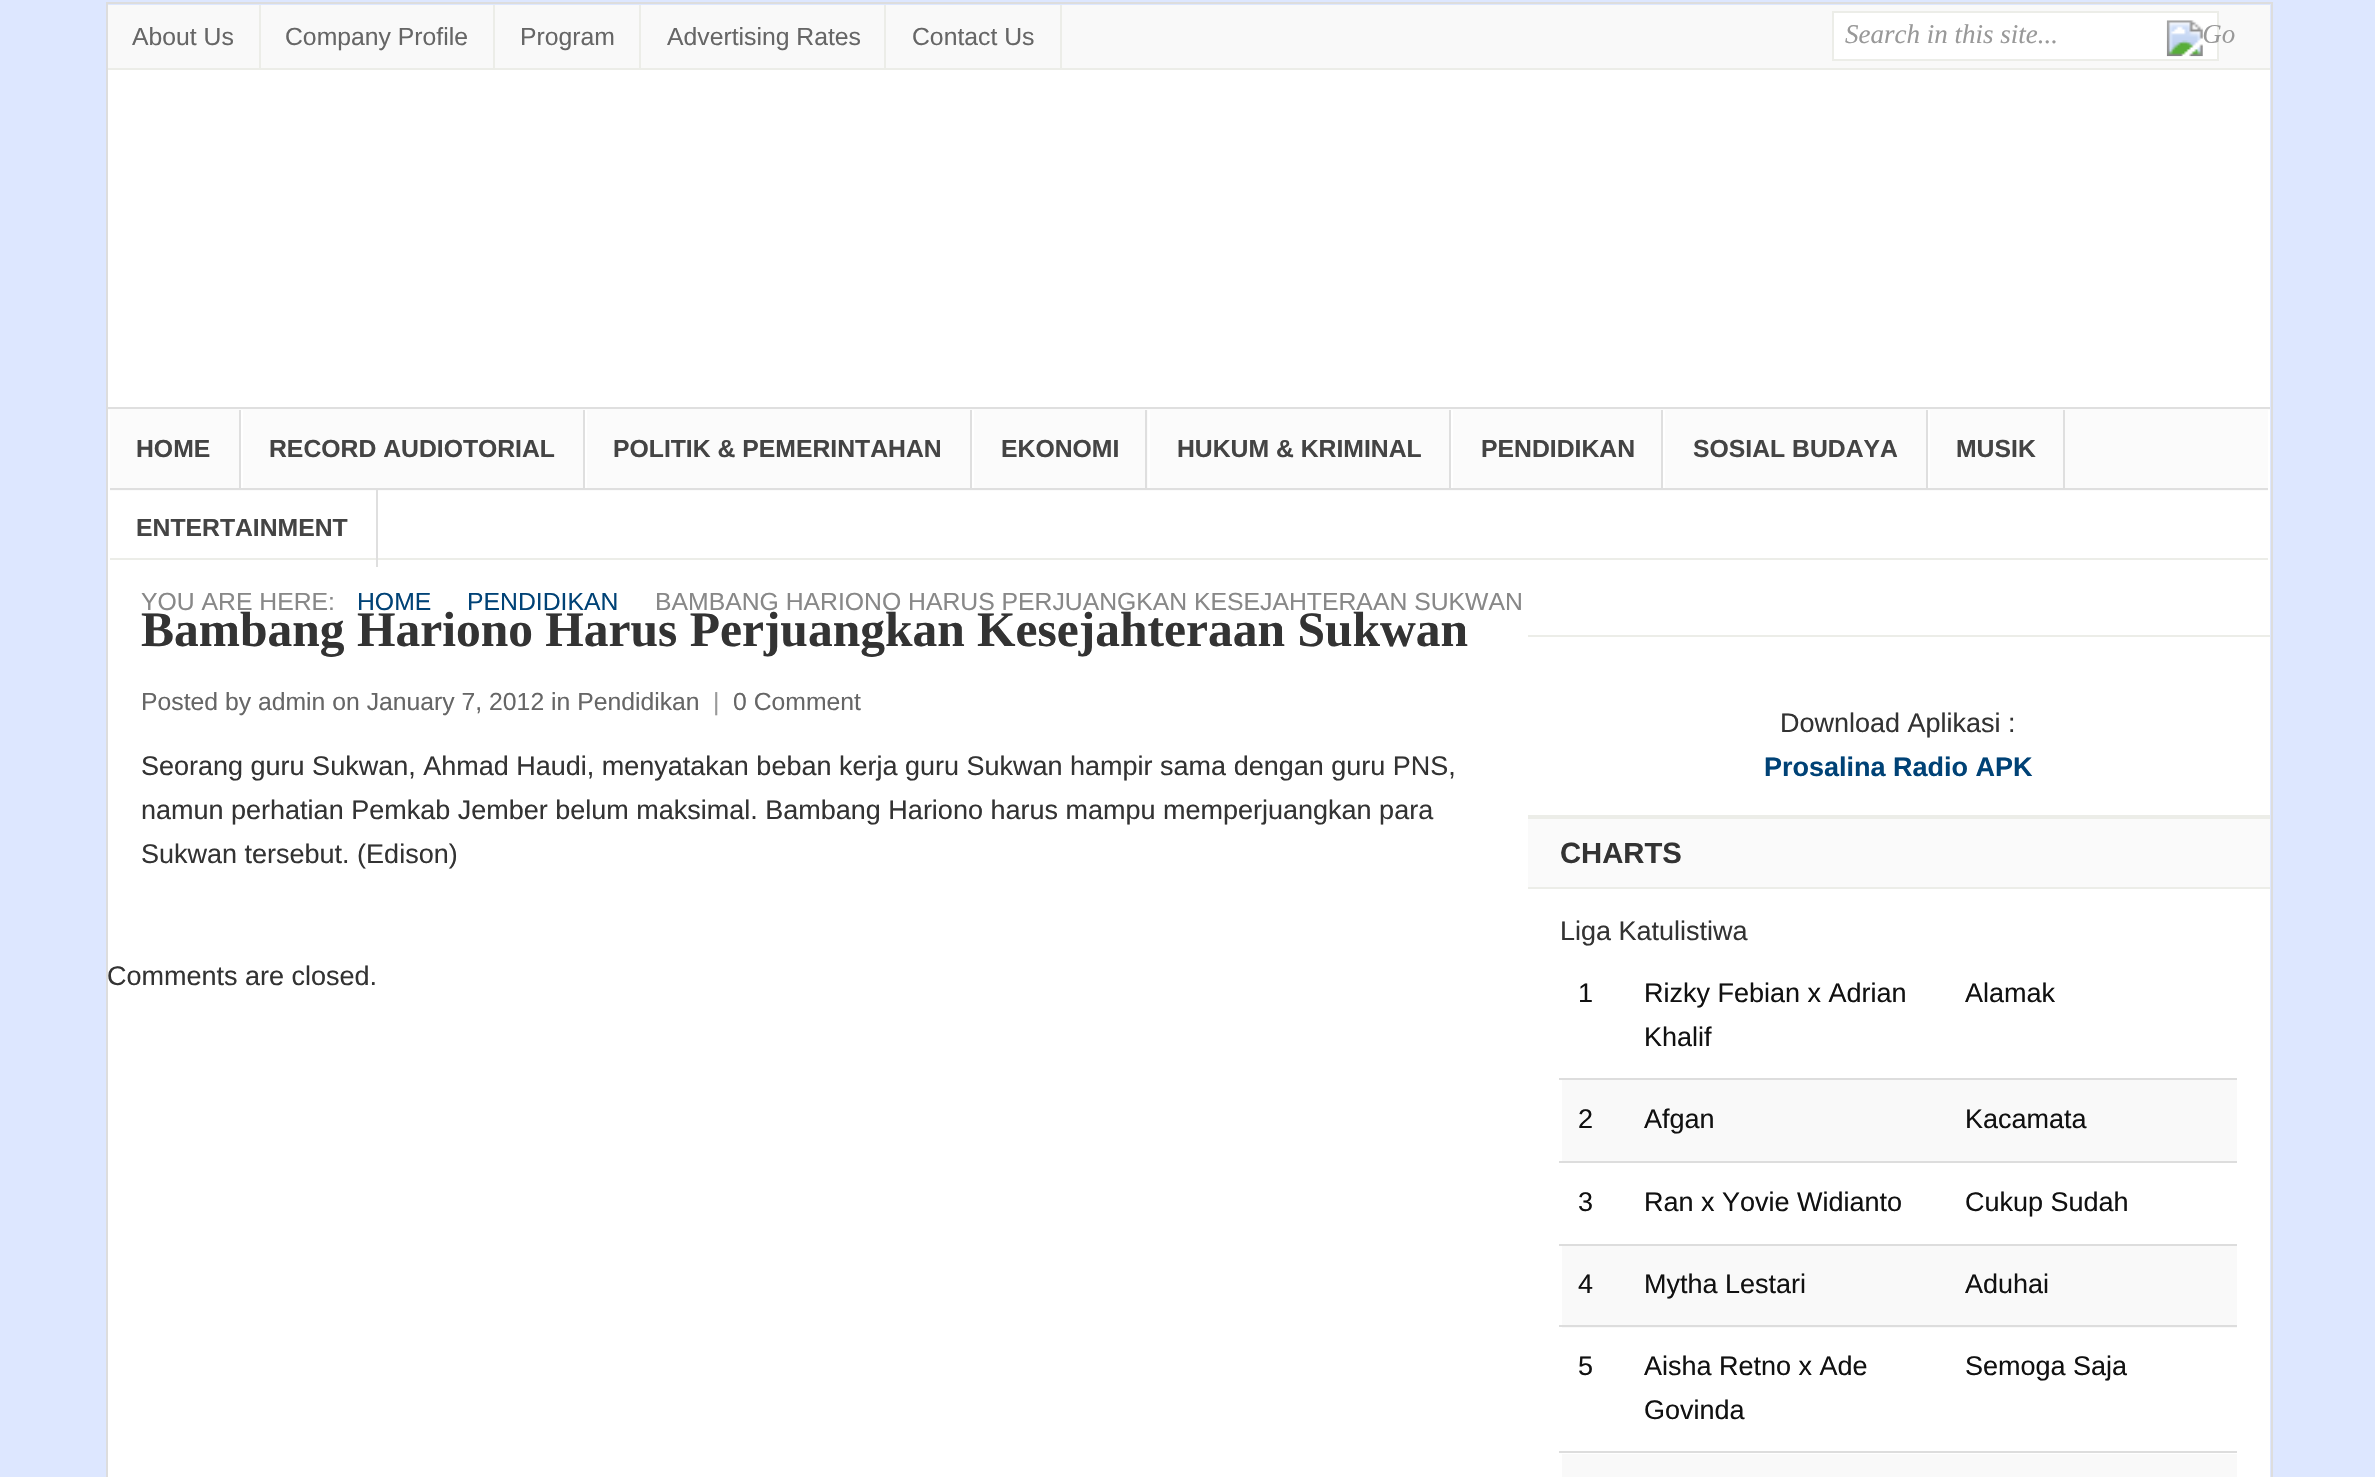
#include "include/core/SkBlurTypes.h"
#include "include/core/SkCanvas.h"
#include "include/core/SkData.h"
#include "include/core/SkFont.h"
#include "include/core/SkFontMgr.h"
#include "include/core/SkImage.h"
#include "include/core/SkMaskFilter.h"
#include "include/core/SkPaint.h"
#include "include/core/SkPathBuilder.h"
#include "include/core/SkTextBlob.h"
#include "include/effects/SkDashPathEffect.h"
#include "include/effects/SkGradientShader.h"
#include "include/utils/SkParsePath.h"

extern sk_sp<SkFontMgr> fontMgr;

void draw(SkCanvas* canvas) {
    SkPaint p;
    p.setAntiAlias(true);
    auto font = [&](const char* family, int weight, float size, bool italic = false) {
        SkFontStyle style(weight, SkFontStyle::kNormal_Width,
            italic ? SkFontStyle::kItalic_Slant : SkFontStyle::kUpright_Slant);
        SkFont result(fontMgr->matchFamilyStyle(family, style), size);
        result.setSubpixel(true);
        return result;
    };
    auto drawPhoto = [&](const char* path, float l, float t, float r, float b) {
        auto image = SkImages::DeferredFromEncodedData(SkData::MakeFromFileName(path));
        canvas->drawImageRect(image, SkRect::MakeLTRB(l, t, r, b), SkSamplingOptions());
    };
    canvas->clear(0xFFDDE7FF);
    p.setStyle(SkPaint::kStroke_Style);
    p.setStrokeWidth(2);
    p.setColor(0xFFDDDDDD);
    canvas->drawRect(SkRect::MakeLTRB(107, 3, 2272, 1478), p);
    p.setStyle(SkPaint::kFill_Style);
    {
        const struct { float l, t, r, b; SkColor color; } items[] = {
            {108, 5, 2270, 68, 0xFFF9F9F9},
            {108, 68, 2270, 70, 0xFFECEDE8},
            {259, 5, 261, 68, 0xFFECEDE8},
        };
        for (auto [l, t, r, b, color] : items) {
            p.setColor(color);
            canvas->drawRect(SkRect::MakeLTRB(l, t, r, b), p);
        }
    }
    auto font1 = font("Liberation Sans", 400, 24.75f);
    p.setColor(0xFF666666);
    canvas->drawString("About Us", 132, 45, font1, p);
    p.setColor(0xFFECEDE8);
    canvas->drawRect(SkRect::MakeLTRB(493, 5, 495, 68), p);
    p.setColor(0xFF666666);
    canvas->drawString("Company Profile", 285, 45, font1, p);
    p.setColor(0xFFECEDE8);
    canvas->drawRect(SkRect::MakeLTRB(639, 5, 641, 68), p);
    p.setColor(0xFF666666);
    canvas->drawString("Program", 520, 45, font1, p);
    p.setColor(0xFFECEDE8);
    canvas->drawRect(SkRect::MakeLTRB(884, 5, 886, 68), p);
    p.setColor(0xFF666666);
    canvas->drawString("Advertising Rates", 667, 45, font1, p);
    p.setColor(0xFFECEDE8);
    canvas->drawRect(SkRect::MakeLTRB(1060, 5, 1062, 68), p);
    p.setColor(0xFF666666);
    canvas->drawString("Contact Us", 912, 45, font1, p);
    p.setColor(0xFFFFFFFF);
    canvas->drawRect(SkRect::MakeLTRB(1833, 12, 2218, 60), p);
    p.setStyle(SkPaint::kStroke_Style);
    p.setColor(0xFFECEDE8);
    canvas->drawRect(SkRect::MakeLTRB(1833, 12, 2218, 60), p);
    auto font2 = font("Liberation Serif", 400, 27, true);
    p.setStyle(SkPaint::kFill_Style);
    p.setColor(0xFF999999);
    canvas->drawString("Search in this site...", 1845, 43, font2, p);
    drawPhoto("media/1.png", 2166, 20, 2235, 57);
    {
        const struct { float l, t, r, b; SkColor color; } items[] = {
            {108, 70, 2270, 407, 0xFFFFFFFF},
            {108, 409, 2270, 491, 0xFFFBFBFB},
            {108, 407, 2270, 409, 0xFFDFDFDF},
            {108, 488, 2270, 490, 0xFFDFDFDF},
            {108, 558, 2270, 560, 0xFFECEDE8},
            {108, 560, 2270, 1477, 0xFFFFFFFF},
            {2268, 410, 2270, 567, 0xFFFFFFFF},
            {239, 410, 241, 488, 0xFFDFDFDF},
            {108, 410, 110, 567, 0xFFFFFFFF},
        };
        for (auto [l, t, r, b, color] : items) {
            p.setColor(color);
            canvas->drawRect(SkRect::MakeLTRB(l, t, r, b), p);
        }
    }
    auto font3 = font("Liberation Sans", 700, 24.75f);
    p.setColor(0xFF444444);
    canvas->drawString("HOME", 136, 457, font3, p);
    p.setColor(0xFFDFDFDF);
    canvas->drawRect(SkRect::MakeLTRB(583, 410, 585, 488), p);
    p.setColor(0xFFFFFFFF);
    canvas->drawRect(SkRect::MakeLTRB(241, 410, 243, 488), p);
    p.setColor(0xFF444444);
    canvas->drawString("RECORD AUDIOTORIAL", 269, 457, font3, p);
    p.setColor(0xFFDFDFDF);
    canvas->drawRect(SkRect::MakeLTRB(970, 410, 972, 488), p);
    p.setColor(0xFFFFFFFF);
    canvas->drawRect(SkRect::MakeLTRB(585, 410, 587, 488), p);
    p.setColor(0xFF444444);
    canvas->drawString("POLITIK & PEMERINTAHAN", 613, 457, font3, p);
    p.setColor(0xFFDFDFDF);
    canvas->drawRect(SkRect::MakeLTRB(1145, 410, 1147, 488), p);
    p.setColor(0xFFFFFFFF);
    canvas->drawRect(SkRect::MakeLTRB(972, 410, 974, 488), p);
    p.setColor(0xFF444444);
    canvas->drawString("EKONOMI", 1001, 457, font3, p);
    p.setColor(0xFFDFDFDF);
    canvas->drawRect(SkRect::MakeLTRB(1449, 410, 1451, 488), p);
    p.setColor(0xFFFFFFFF);
    canvas->drawRect(SkRect::MakeLTRB(1148, 410, 1150, 488), p);
    p.setColor(0xFF444444);
    canvas->drawString("HUKUM & KRIMINAL", 1177, 457, font3, p);
    p.setColor(0xFFDFDFDF);
    canvas->drawRect(SkRect::MakeLTRB(1661, 410, 1663, 488), p);
    p.setColor(0xFFFFFFFF);
    canvas->drawRect(SkRect::MakeLTRB(1451, 410, 1453, 488), p);
    p.setColor(0xFF444444);
    canvas->drawString("PENDIDIKAN", 1481, 457, font3, p);
    p.setColor(0xFFDFDFDF);
    canvas->drawRect(SkRect::MakeLTRB(1926, 410, 1928, 488), p);
    p.setColor(0xFFFFFFFF);
    canvas->drawRect(SkRect::MakeLTRB(1663, 410, 1665, 488), p);
    p.setColor(0xFF444444);
    canvas->drawString("SOSIAL BUDAYA", 1693, 457, font3, p);
    p.setColor(0xFFDFDFDF);
    canvas->drawRect(SkRect::MakeLTRB(2063, 410, 2065, 488), p);
    p.setColor(0xFFFFFFFF);
    canvas->drawRect(SkRect::MakeLTRB(1928, 410, 1930, 488), p);
    p.setColor(0xFF444444);
    canvas->drawString("MUSIK", 1956, 457, font3, p);
    p.setColor(0xFFFFFFFF);
    canvas->drawRect(SkRect::MakeLTRB(110, 491, 2268, 558), p);
    p.setColor(0xFFDFDFDF);
    canvas->drawRect(SkRect::MakeLTRB(376, 488, 378, 567), p);
    p.setColor(0xFF444444);
    canvas->drawString("ENTERTAINMENT", 136, 536, font3, p);
    p.setColor(0xFF888888);
    canvas->drawString("YOU ARE HERE:", 141, 610, font1, p);
    p.setColor(0xFF004276);
    canvas->drawString("HOME", 357, 610, font1, p);
    canvas->drawString("PENDIDIKAN", 467, 610, font1, p);
    p.setColor(0xFF888888);
    canvas->drawString("BAMBANG HARIONO HARUS PERJUANGKAN KESEJAHTERAAN SUKWAN", 655, 610, font1, p);
    auto font4 = font("Liberation Serif", 700, 49.5f);
    p.setColor(0xFF333333);
    canvas->drawString("Bambang Hariono Harus Perjuangkan Kesejahteraan Sukwan", 141, 646, font4, p);
    p.setColor(0xFF666666);
    canvas->drawString("Posted by admin on January 7, 2012 in Pendidikan", 141, 710, font1, p);
    p.setColor(0xFF999999);
    canvas->drawString("|", 713, 710, font1, p);
    p.setColor(0xFF666666);
    canvas->drawString("0 Comment", 733, 710, font1, p);
    auto font5 = font("Liberation Sans", 400, 27);
    p.setColor(0xFF333333);
    {
        const struct { const char* s; float x, y; } items[] = {
            {"Seorang guru Sukwan, Ahmad Haudi, menyatakan beban kerja guru Sukwan hampir sama dengan guru PNS,", 141, 775},
            {"namun perhatian Pemkab Jember belum maksimal. Bambang Hariono harus mampu memperjuangkan para", 141, 819},
            {"Sukwan tersebut. (Edison)", 141, 863},
            {"Comments are closed.", 107, 985},
        };
        for (auto [s, x, y] : items) {
            canvas->drawString(s, x, y, font5, p);
        }
    }
    p.setColor(0xFFECEDE8);
    canvas->drawRect(SkRect::MakeLTRB(1528, 815, 2270, 819), p);
    canvas->drawRect(SkRect::MakeLTRB(1528, 635, 2270, 637), p);
    p.setColor(0xFF333333);
    canvas->drawString("Download Aplikasi :", 1780, 732, font5, p);
    auto font6 = font("Liberation Sans", 700, 27);
    p.setColor(0xFF004276);
    canvas->drawString("Prosalina Radio APK", 1764, 776, font6, p);
    p.setColor(0xFFFAFAFA);
    canvas->drawRect(SkRect::MakeLTRB(1528, 819, 2270, 887), p);
    auto font7 = font("Liberation Sans", 700, 29.25f);
    p.setColor(0xFF333333);
    canvas->drawString("CHARTS", 1560, 863, font7, p);
    p.setColor(0xFFECEDE8);
    canvas->drawRect(SkRect::MakeLTRB(1528, 887, 2270, 889), p);
    p.setColor(0xFF333333);
    canvas->drawString("Liga Katulistiwa", 1560, 940, font5, p);
    p.setColor(0xFF111111);
    {
        const struct { const char* s; float x, y; } items[] = {
            {"1", 1578, 1002},
            {"Rizky Febian x Adrian", 1644, 1002},
            {"Khalif", 1644, 1046},
            {"Alamak", 1965, 1002},
        };
        for (auto [s, x, y] : items) {
            canvas->drawString(s, x, y, font5, p);
        }
    }
    p.setColor(0xFFDDDDDD);
    canvas->drawRect(SkRect::MakeLTRB(1559, 1078, 2237, 1080), p);
    p.setColor(0xFFF9F9F9);
    canvas->drawRect(SkRect::MakeLTRB(1562, 1080, 2237, 1161), p);
    p.setColor(0xFF111111);
    {
        const struct { const char* s; float x, y; } items[] = {
            {"2", 1578, 1128},
            {"Afgan", 1644, 1128},
            {"Kacamata", 1965, 1128},
        };
        for (auto [s, x, y] : items) {
            canvas->drawString(s, x, y, font5, p);
        }
    }
    p.setColor(0xFFDDDDDD);
    canvas->drawRect(SkRect::MakeLTRB(1559, 1161, 2237, 1163), p);
    p.setColor(0xFF111111);
    {
        const struct { const char* s; float x, y; } items[] = {
            {"3", 1578, 1211},
            {"Ran x Yovie Widianto", 1644, 1211},
            {"Cukup Sudah", 1965, 1211},
        };
        for (auto [s, x, y] : items) {
            canvas->drawString(s, x, y, font5, p);
        }
    }
    p.setColor(0xFFDDDDDD);
    canvas->drawRect(SkRect::MakeLTRB(1559, 1244, 2237, 1246), p);
    p.setColor(0xFFF9F9F9);
    canvas->drawRect(SkRect::MakeLTRB(1562, 1246, 2237, 1328), p);
    p.setColor(0xFF111111);
    {
        const struct { const char* s; float x, y; } items[] = {
            {"4", 1578, 1293},
            {"Mytha Lestari", 1644, 1293},
            {"Aduhai", 1965, 1293},
        };
        for (auto [s, x, y] : items) {
            canvas->drawString(s, x, y, font5, p);
        }
    }
    p.setColor(0xFFDDDDDD);
    canvas->drawRect(SkRect::MakeLTRB(1559, 1325, 2237, 1327), p);
    p.setColor(0xFF111111);
    {
        const struct { const char* s; float x, y; } items[] = {
            {"5", 1578, 1375},
            {"Aisha Retno x Ade", 1644, 1375},
            {"Govinda", 1644, 1419},
            {"Semoga Saja", 1965, 1375},
        };
        for (auto [s, x, y] : items) {
            canvas->drawString(s, x, y, font5, p);
        }
    }
    p.setColor(0xFFDDDDDD);
    canvas->drawRect(SkRect::MakeLTRB(1559, 1451, 2237, 1453), p);
    p.setColor(0xFFF9F9F9);
    canvas->drawRect(SkRect::MakeLTRB(1562, 1454, 2237, 1477), p);
}
